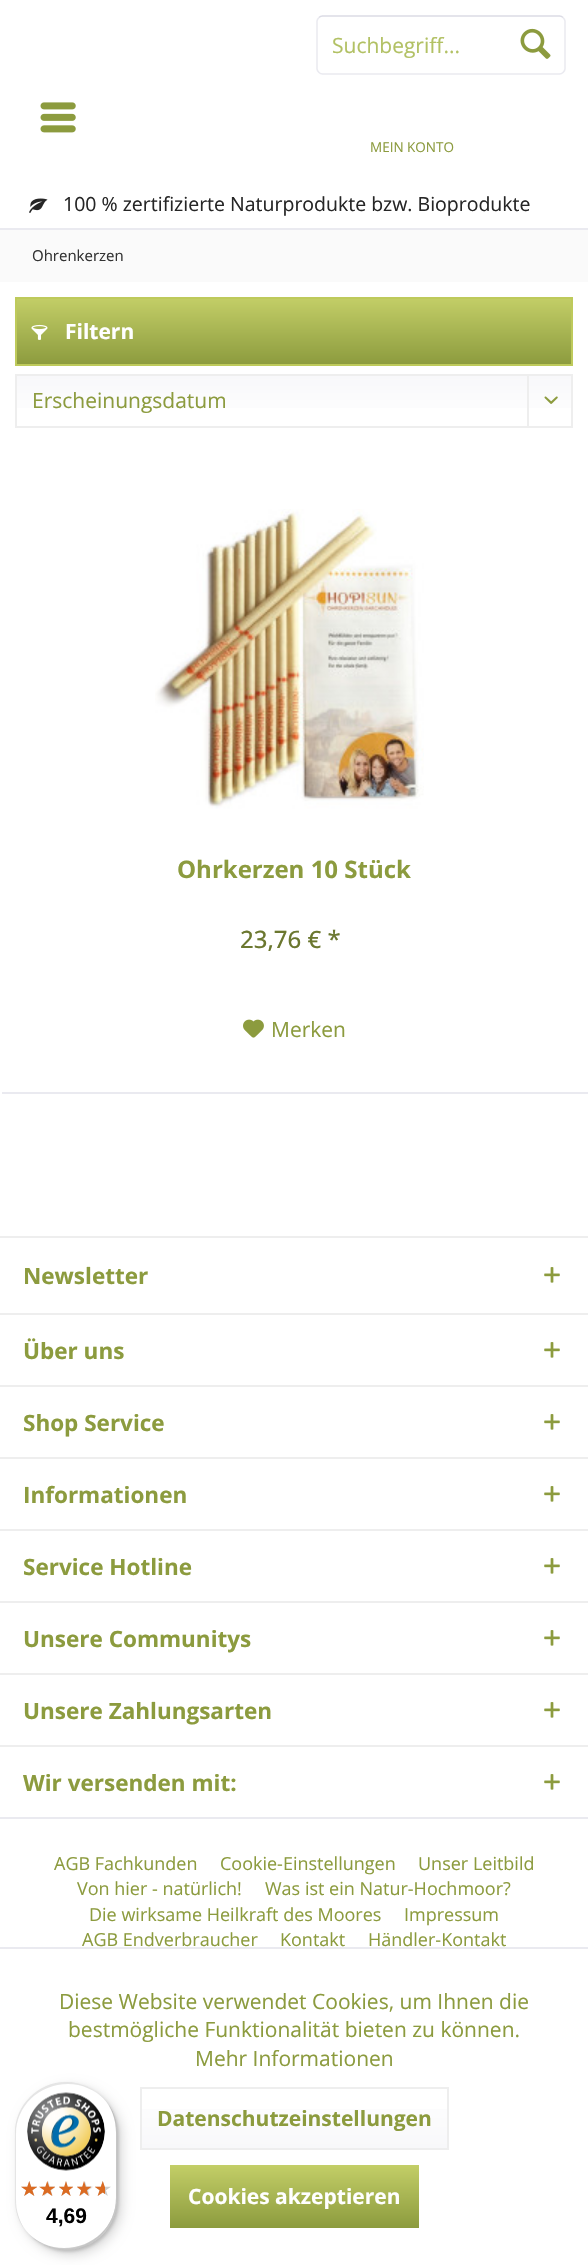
#include "include/core/SkBlurTypes.h"
#include "include/core/SkCanvas.h"
#include "include/core/SkData.h"
#include "include/core/SkFont.h"
#include "include/core/SkFontMgr.h"
#include "include/core/SkImage.h"
#include "include/core/SkMaskFilter.h"
#include "include/core/SkPaint.h"
#include "include/core/SkPathBuilder.h"
#include "include/core/SkTextBlob.h"
#include "include/effects/SkDashPathEffect.h"
#include "include/effects/SkGradientShader.h"
#include "include/utils/SkParsePath.h"

extern sk_sp<SkFontMgr> fontMgr;

void draw(SkCanvas* canvas) {
    SkPaint p;
    p.setAntiAlias(true);
    auto font = [&](const char* family, int weight, float size, bool italic = false) {
        SkFontStyle style(weight, SkFontStyle::kNormal_Width,
            italic ? SkFontStyle::kItalic_Slant : SkFontStyle::kUpright_Slant);
        SkFont result(fontMgr->matchFamilyStyle(family, style), size);
        result.setSubpixel(true);
        return result;
    };
    auto drawPhoto = [&](const char* path, float l, float t, float r, float b) {
        auto image = SkImages::DeferredFromEncodedData(SkData::MakeFromFileName(path));
        canvas->drawImageRect(image, SkRect::MakeLTRB(l, t, r, b), SkSamplingOptions());
    };
    canvas->clear(0xFFFFFFFF);
    p.setStyle(SkPaint::kStroke_Style);
    p.setStrokeWidth(1.5f);
    p.setColor(0xFFDBDBE5);
    canvas->drawPath(SkPathBuilder().moveTo(319, 17.5f).cubicTo(320, 16.5f, 321, 16, 322.5f, 16).lineTo(559.5f, 16).cubicTo(561, 16, 562, 16.5f, 563, 17.5f).detach(), p);
    p.setColor(0xFFEAEAF0);
    canvas->drawPath(SkPathBuilder().moveTo(563, 17.5f).cubicTo(564, 18.5f, 565, 19.5f, 565, 21).lineTo(565, 69).cubicTo(565, 70.5f, 564, 71.5f, 563, 72.5f).cubicTo(562, 73.5f, 561, 74, 559.5f, 74).lineTo(322.5f, 74).cubicTo(321, 74, 320, 73.5f, 319, 72.5f).cubicTo(318, 71.5f, 317, 70.5f, 317, 69).lineTo(317, 21).cubicTo(317, 19.5f, 318, 18.5f, 319, 17.5f).detach(), p);
    auto font1 = font("Open Sans", 400, 21);
    p.setStyle(SkPaint::kFill_Style);
    p.setColor(0xFFB2C164);
    canvas->drawString("Suchbegriff...", 332, 53, font1, p);
    drawPhoto("media/1.png", 520, 28, 551, 59);
    drawPhoto("media/2.png", 40, 102, 76, 133);
    auto font2 = font("Open Sans", 400, 13.5f);
    p.setColor(0xFF8C9B3E);
    canvas->drawString("MEIN KONTO", 370, 152, font2, p);
    drawPhoto("media/3.png", 29, 198, 48, 213);
    auto font3 = font("Open Sans", 400, 19.5f);
    p.setColor(0xFF262626);
    canvas->drawString("100 % zertifizierte Naturprodukte bzw. Bioprodukte", 63, 211, font3, p);
    p.setColor(0xFFFAFAFA);
    canvas->drawRect(SkRect::MakeLTRB(0, 230, 588, 282), p);
    p.setColor(0xFFEAEAF0);
    canvas->drawRect(SkRect::MakeLTRB(0, 228, 588, 230), p);
    auto font4 = font("Open Sans", 400, 15);
    p.setColor(0xFF333333);
    canvas->drawString("Ohrenkerzen", 32, 261, font4, p);
    {
        const SkColor colors[] = {0xFFC3CE67, 0xFF8C9B3E};
        const float stops[] = {0, 1};
        const SkPoint ends[] = {{294, 298}, {294, 365}};
        p.setShader(SkGradientShader::MakeLinear(ends, colors, stops, 2, SkTileMode::kClamp));
        p.setAlpha(255);
    }
    canvas->drawRect(SkRect::MakeLTRB(17, 299, 571, 364), p);
    p.setStyle(SkPaint::kStroke_Style);
    p.setStrokeWidth(2);
    p.setShader(nullptr);
    p.setColor(0xFFBECA5B);
    canvas->drawRect(SkRect::MakeLTRB(16, 298, 572, 365), p);
    drawPhoto("media/4.png", 31, 324, 48, 340);
    auto font5 = font("Open Sans", 700, 21);
    p.setStyle(SkPaint::kFill_Style);
    p.setColor(0xFFFFFFFF);
    canvas->drawString("Filtern", 65, 339, font5, p);
    {
        const SkColor colors[] = {0xFFF8F8FA, 0xFFFFFFFF};
        const float stops[] = {0, 1};
        const SkPoint ends[] = {{294, 375}, {294, 426}};
        p.setShader(SkGradientShader::MakeLinear(ends, colors, stops, 2, SkTileMode::kClamp));
        p.setAlpha(255);
    }
    canvas->drawRect(SkRect::MakeLTRB(17, 376, 571, 408), p);
    p.setStyle(SkPaint::kStroke_Style);
    p.setShader(nullptr);
    p.setColor(0xFFEEEEEE);
    canvas->drawRect(SkRect::MakeLTRB(16, 375, 572, 427), p);
    p.setStyle(SkPaint::kFill_Style);
    p.setColor(0xFF8C9B3E);
    canvas->drawString("Erscheinungsdatum", 32, 408, font1, p);
    p.setColor(0xFFEEEEEE);
    canvas->drawRect(SkRect::MakeLTRB(527, 375, 529, 428), p);
    drawPhoto("media/5.png", 544, 396, 558, 404);
    p.setColor(0xFFEAEAF0);
    canvas->drawRect(SkRect::MakeLTRB(0, 1092, 588, 1094), p);
    p.setColor(0xFFFFFFFF);
    canvas->drawRect(SkRect::MakeLTRB(0, 1092, 2, 1094), p);
    drawPhoto("media/6.png", 155, 509, 424, 809);
    auto font6 = font("Open Sans", 700, 24);
    p.setColor(0xFF8C9B3E);
    canvas->drawString("Ohrkerzen 10 Stück", 177, 878, font6, p);
    auto font7 = font("Open Sans", 500, 24);
    p.setColor(0xFF6B772F);
    canvas->drawString("23,76 € *", 240, 948, font7, p);
    drawPhoto("media/7.png", 243, 1019, 264, 1038);
    p.setColor(0xFF8C9B3E);
    canvas->drawString("Merken", 271, 1037, font1, p);
    p.setColor(0xFFEEEEEE);
    canvas->drawRect(SkRect::MakeLTRB(0, 1236, 588, 1238), p);
    auto font8 = font("Open Sans", 700, 22.5f);
    p.setColor(0xFF8C9B3E);
    canvas->drawString("Newsletter", 23, 1284, font8, p);
    drawPhoto("media/8.png", 544, 1267, 560, 1283);
    p.setColor(0xFFEEEEEE);
    canvas->drawRect(SkRect::MakeLTRB(0, 1313, 588, 1315), p);
    p.setColor(0xFF8C9B3E);
    canvas->drawString("Über uns", 23, 1359, font8, p);
    drawPhoto("media/8.png", 544, 1342, 560, 1358);
    p.setColor(0xFFEEEEEE);
    canvas->drawRect(SkRect::MakeLTRB(0, 1385, 588, 1387), p);
    p.setColor(0xFF8C9B3E);
    canvas->drawString("Shop Service", 23, 1431, font8, p);
    drawPhoto("media/8.png", 544, 1414, 560, 1430);
    p.setColor(0xFFEEEEEE);
    canvas->drawRect(SkRect::MakeLTRB(0, 1457, 588, 1459), p);
    p.setColor(0xFF8C9B3E);
    canvas->drawString("Informationen", 23, 1503, font8, p);
    drawPhoto("media/8.png", 544, 1486, 560, 1502);
    p.setColor(0xFFEEEEEE);
    canvas->drawRect(SkRect::MakeLTRB(0, 1529, 588, 1531), p);
    p.setColor(0xFF8C9B3E);
    canvas->drawString("Service Hotline", 23, 1575, font8, p);
    drawPhoto("media/8.png", 544, 1558, 560, 1574);
    p.setColor(0xFFEEEEEE);
    canvas->drawRect(SkRect::MakeLTRB(0, 1601, 588, 1603), p);
    p.setColor(0xFF8C9B3E);
    canvas->drawString("Unsere Communitys", 23, 1647, font8, p);
    drawPhoto("media/8.png", 544, 1630, 560, 1646);
    p.setColor(0xFFEEEEEE);
    canvas->drawRect(SkRect::MakeLTRB(0, 1673, 588, 1675), p);
    p.setColor(0xFF8C9B3E);
    canvas->drawString("Unsere Zahlungsarten", 23, 1719, font8, p);
    drawPhoto("media/8.png", 544, 1702, 560, 1718);
    p.setColor(0xFFEEEEEE);
    canvas->drawRect(SkRect::MakeLTRB(0, 1745, 588, 1747), p);
    p.setColor(0xFF8C9B3E);
    canvas->drawString("Wir versenden mit:", 23, 1791, font8, p);
    drawPhoto("media/8.png", 544, 1774, 560, 1790);
    p.setColor(0xFFEAEAF0);
    canvas->drawRect(SkRect::MakeLTRB(0, 1817, 588, 1819), p);
    auto font9 = font("Open Sans", 400, 18);
    p.setColor(0xFF8C9B3E);
    {
        const struct { const char* s; float x, y; } items[] = {
            {"AGB Fachkunden", 54, 1870},
            {"Cookie-Einstellungen", 220, 1870},
            {"Unser Leitbild", 418, 1870},
            {"Von hier - natürlich!", 77, 1895},
            {"Was ist ein Natur-Hochmoor?", 265, 1895},
            {"Die wirksame Heilkraft des Moores", 89, 1921},
            {"Impressum", 404, 1921},
            {"AGB Endverbraucher", 82, 1946},
            {"Kontakt", 280, 1946},
            {"Händler-Kontakt", 368, 1946},
        };
        for (auto [s, x, y] : items) {
            canvas->drawString(s, x, y, font9, p);
        }
    }
    p.setColor(0xFFEAEAF0);
    canvas->drawRect(SkRect::MakeLTRB(0, 1947, 588, 1949), p);
    p.setColor(0xFF8C9B3E);
    {
        const struct { const char* s; float x, y; } items[] = {
            {"Diese Website verwendet Cookies, um Ihnen die", 59, 2009},
            {"bestmögliche Funktionalität bieten zu können.", 68, 2037},
            {"Mehr Informationen", 195, 2066},
        };
        for (auto [s, x, y] : items) {
            canvas->drawString(s, x, y, font1, p);
        }
    }
    {
        const SkColor colors[] = {0xFFFFFFFF, 0xFFF8F8FA};
        const float stops[] = {0, 1};
        const SkPoint ends[] = {{294, 2088}, {294, 2148}};
        p.setShader(SkGradientShader::MakeLinear(ends, colors, stops, 2, SkTileMode::kClamp));
        p.setAlpha(255);
    }
    canvas->drawRect(SkRect::MakeLTRB(142, 2109, 447, 2148), p);
    p.setStyle(SkPaint::kStroke_Style);
    p.setShader(nullptr);
    p.setColor(0xFFEEEEEE);
    canvas->drawRect(SkRect::MakeLTRB(141, 2088, 448, 2149), p);
    p.setStyle(SkPaint::kFill_Style);
    p.setColor(0xFF8C9B3E);
    canvas->drawString("Datenschutzeinstellungen", 157, 2126, font5, p);
    {
        const SkColor colors[] = {0xFFC3CE67, 0xFF8C9B3E};
        const float stops[] = {0, 1};
        const SkPoint ends[] = {{294, 2165}, {294, 2228}};
        p.setShader(SkGradientShader::MakeLinear(ends, colors, stops, 2, SkTileMode::kClamp));
        p.setAlpha(255);
    }
    canvas->drawRect(SkRect::MakeLTRB(170, 2165, 419, 2228), p);
    p.setShader(nullptr);
    p.setColor(0xFFFFFFFF);
    canvas->drawString("Cookies akzeptieren", 188, 2204, font5, p);
    p.setColor(0x26000000);
    p.setMaskFilter(SkMaskFilter::MakeBlur(kNormal_SkBlurStyle, 6));
    canvas->drawRoundRect(SkRect::MakeLTRB(20, 2087, 122, 2255), 51, 51, p);
    p.setMaskFilter(nullptr);
    p.setMaskFilter(SkMaskFilter::MakeBlur(kNormal_SkBlurStyle, 1.5f));
    canvas->drawRoundRect(SkRect::MakeLTRB(17, 2084, 119, 2252), 51, 51, p);
    p.setMaskFilter(nullptr);
    p.setColor(0xFFFFFFFF);
    canvas->drawRoundRect(SkRect::MakeLTRB(15, 2082, 117, 2250), 51, 51, p);
    p.setColor(0x1A000000);
    canvas->drawPath(SkPathBuilder().moveTo(68, 2084).cubicTo(82, 2084, 95, 2090, 104, 2099).cubicTo(95, 2089, 81, 2082, 66, 2082).cubicTo(38, 2082, 15, 2105, 15, 2133).lineTo(15, 2199).cubicTo(15, 2210, 18, 2220, 24, 2228).cubicTo(19, 2220, 16, 2210, 16, 2200).lineTo(16, 2134).cubicTo(16, 2106, 39, 2084, 68, 2084).close().detach(), p);
    p.setColor(0x33000000);
    canvas->drawPath(SkPathBuilder().moveTo(28, 2233).cubicTo(37, 2243, 51, 2250, 66, 2250).cubicTo(94, 2250, 117, 2227, 117, 2199).lineTo(117, 2133).cubicTo(117, 2122, 114, 2112, 108, 2104).cubicTo(113, 2112, 116, 2122, 116, 2132).lineTo(116, 2198).cubicTo(116, 2226, 93, 2248, 64, 2248).cubicTo(50, 2248, 37, 2242, 28, 2233).close().detach(), p);
    p.setColor(0x33323232);
    canvas->drawPath(SkPathBuilder().moveTo(27, 2232).cubicTo(37, 2243, 51, 2250, 66, 2250).cubicTo(94, 2250, 117, 2227, 117, 2199).lineTo(117, 2133).cubicTo(117, 2118, 110, 2104, 99, 2094).cubicTo(110, 2104, 116, 2117, 116, 2132).lineTo(116, 2198).cubicTo(116, 2226, 93, 2249, 65, 2249).cubicTo(50, 2249, 37, 2243, 27, 2232).close().detach(), p);
    p.setColor(0x4DFFFFFF);
    canvas->drawPath(SkPathBuilder().moveTo(27, 2232).cubicTo(37, 2243, 51, 2250, 66, 2250).cubicTo(94, 2250, 117, 2227, 117, 2199).lineTo(117, 2133).cubicTo(117, 2118, 110, 2104, 99, 2094).cubicTo(110, 2104, 116, 2117, 116, 2132).lineTo(116, 2198).cubicTo(116, 2226, 93, 2249, 65, 2249).cubicTo(50, 2249, 37, 2243, 27, 2232).close().detach(), p);
    drawPhoto("media/9.png", 27, 2092, 105, 2171);
    drawPhoto("media/10.png", 21, 2181, 37, 2196);
    drawPhoto("media/11.png", 41, 2181, 55, 2196);
    drawPhoto("media/12.png", 59, 2181, 73, 2196);
    drawPhoto("media/13.png", 77, 2181, 93, 2196);
    drawPhoto("media/14.png", 95, 2181, 111, 2196);
    drawPhoto("media/15.png", 21, 2181, 37, 2196);
    drawPhoto("media/16.png", 39, 2181, 55, 2196);
    drawPhoto("media/17.png", 59, 2181, 73, 2196);
    drawPhoto("media/18.png", 77, 2181, 91, 2196);
    drawPhoto("media/19.png", 95, 2181, 105, 2196);
    auto font10 = font("Liberation Sans", 700, 21);
    p.setColor(0xFF000000);
    canvas->drawString("4,69", 46, 2223, font10, p);
}
